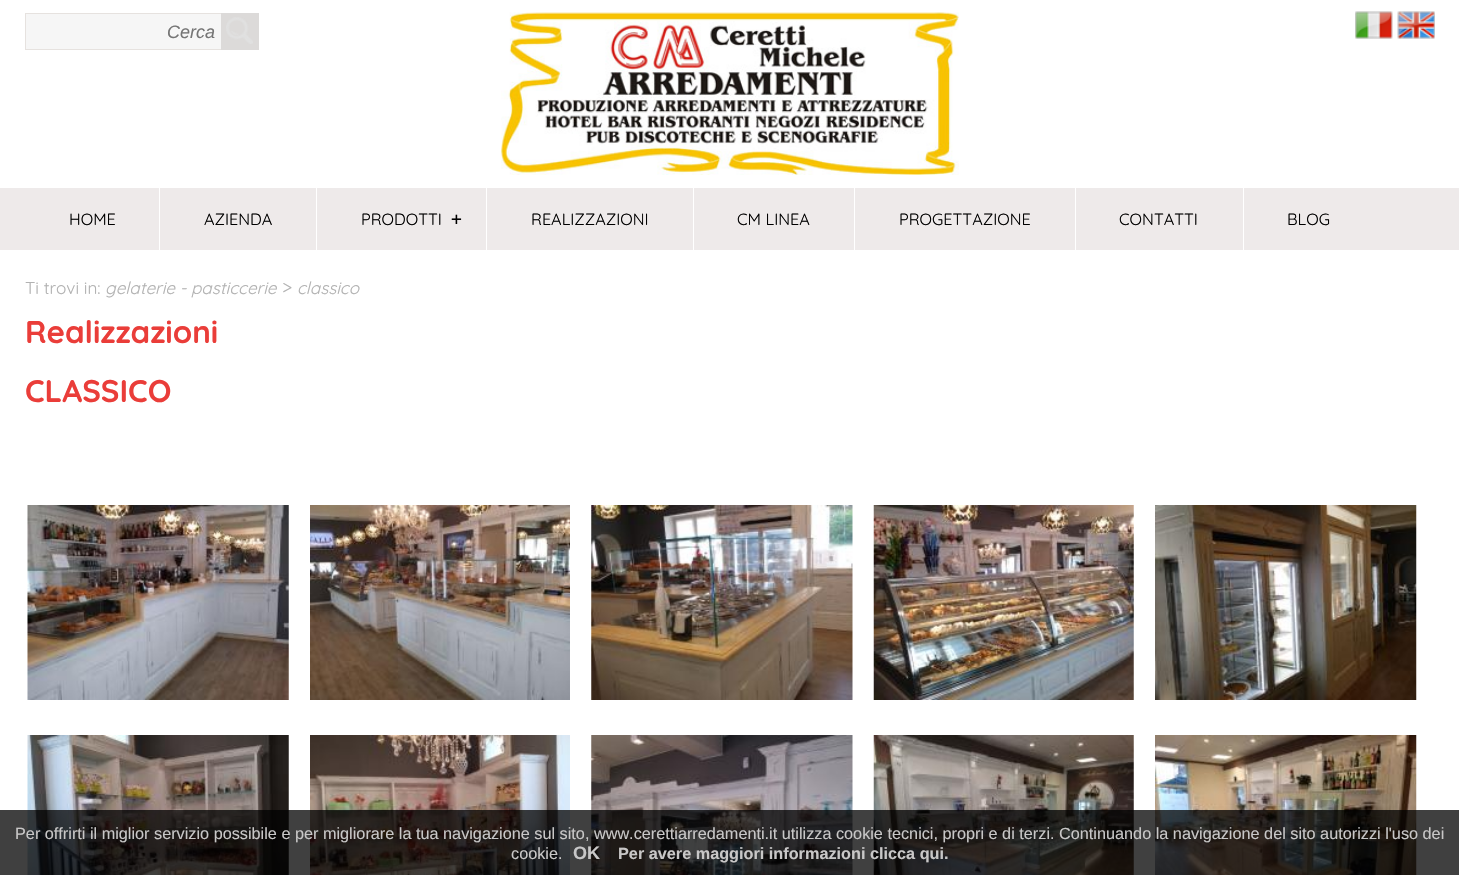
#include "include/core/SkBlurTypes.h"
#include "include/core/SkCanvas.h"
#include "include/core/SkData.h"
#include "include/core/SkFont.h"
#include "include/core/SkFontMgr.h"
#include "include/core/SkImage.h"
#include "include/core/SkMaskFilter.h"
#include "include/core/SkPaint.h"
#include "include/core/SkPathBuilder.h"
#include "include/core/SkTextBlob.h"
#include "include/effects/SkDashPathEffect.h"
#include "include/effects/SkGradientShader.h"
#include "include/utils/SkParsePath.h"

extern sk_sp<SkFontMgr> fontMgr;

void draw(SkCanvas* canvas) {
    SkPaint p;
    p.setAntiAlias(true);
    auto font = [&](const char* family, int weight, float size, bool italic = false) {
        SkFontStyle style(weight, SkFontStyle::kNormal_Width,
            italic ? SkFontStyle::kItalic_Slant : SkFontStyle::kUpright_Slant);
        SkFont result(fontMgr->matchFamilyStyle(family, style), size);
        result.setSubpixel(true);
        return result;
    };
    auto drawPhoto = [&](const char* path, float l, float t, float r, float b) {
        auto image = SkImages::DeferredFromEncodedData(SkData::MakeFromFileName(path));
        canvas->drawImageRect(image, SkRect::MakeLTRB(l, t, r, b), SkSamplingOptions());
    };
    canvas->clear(0xFFFFFFFF);
    p.setColor(0xFFF6F6F6);
    canvas->drawRect(SkRect::MakeLTRB(26, 14, 221, 49), p);
    p.setStyle(SkPaint::kStroke_Style);
    p.setStrokeWidth(1);
    p.setColor(0xFFE6E2DF);
    canvas->drawRect(SkRect::MakeLTRB(25.5f, 13.5f, 222.5f, 49.5f), p);
    auto font1 = font("Liberation Sans", 400, 18, true);
    p.setStyle(SkPaint::kFill_Style);
    p.setColor(0xFF757575);
    canvas->drawString("Cerca", 167, 38, font1, p);
    p.setColor(0xFFDCDAD9);
    canvas->drawRect(SkRect::MakeLTRB(221, 13, 259, 50), p);
    drawPhoto("media/1.png", 226, 17, 253, 44);
    drawPhoto("media/2.png", 501, 12, 959, 175);
    drawPhoto("media/3.png", 1355, 11, 1393, 39);
    drawPhoto("media/4.png", 1397, 11, 1435, 39);
    p.setColor(0xFFEEEAEA);
    canvas->drawRect(SkRect::MakeLTRB(0, 188, 1459, 250), p);
    auto font2 = font("Quicksand", 400, 16.25f);
    p.setColor(0xFF000000);
    canvas->drawString("HOME", 69, 225, font2, p);
    p.setColor(0xFFFFFFFF);
    canvas->drawRect(SkRect::MakeLTRB(159, 188, 160, 251), p);
    p.setColor(0xFF000000);
    canvas->drawString("AZIENDA", 204, 225, font2, p);
    p.setColor(0xFFFFFFFF);
    canvas->drawRect(SkRect::MakeLTRB(316, 188, 317, 251), p);
    p.setColor(0xFF000000);
    canvas->drawString("PRODOTTI", 361, 225, font2, p);
    auto font3 = font("DejaVu Sans Mono", 400, 18);
    canvas->drawString("+", 451, 225, font3, p);
    p.setColor(0xFFFFFFFF);
    canvas->drawRect(SkRect::MakeLTRB(486, 188, 487, 251), p);
    p.setColor(0xFF000000);
    canvas->drawString("REALIZZAZIONI", 531, 225, font2, p);
    p.setColor(0xFFFFFFFF);
    canvas->drawRect(SkRect::MakeLTRB(693, 188, 694, 251), p);
    p.setColor(0xFF000000);
    canvas->drawString("CM LINEA", 737, 225, font2, p);
    p.setColor(0xFFFFFFFF);
    canvas->drawRect(SkRect::MakeLTRB(854, 188, 855, 251), p);
    p.setColor(0xFF000000);
    canvas->drawString("PROGETTAZIONE", 899, 225, font2, p);
    p.setColor(0xFFFFFFFF);
    canvas->drawRect(SkRect::MakeLTRB(1075, 188, 1076, 251), p);
    p.setColor(0xFF000000);
    canvas->drawString("CONTATTI", 1119, 225, font2, p);
    p.setColor(0xFFFFFFFF);
    canvas->drawRect(SkRect::MakeLTRB(1243, 188, 1244, 251), p);
    p.setColor(0xFF000000);
    canvas->drawString("BLOG", 1287, 225, font2, p);
    auto font4 = font("Quicksand", 400, 17.1f);
    p.setColor(0xFFB2B2B2);
    canvas->drawString("Ti trovi in:", 25, 294, font4, p);
    auto font5 = font("Quicksand", 400, 17.1f, true);
    canvas->drawString("gelaterie - pasticcerie", 105, 294, font5, p);
    auto font6 = font("Quicksand", 400, 19);
    canvas->drawString(">", 282, 294, font6, p);
    canvas->drawString("classico", 297, 294, font5, p);
    auto font7 = font("Quicksand", 700, 31.25f);
    p.setColor(0xFFEA3D39);
    canvas->drawString("Realizzazioni", 25, 343, font7, p);
    canvas->drawString("CLASSICO", 25, 402, font7, p);
    drawPhoto("media/5.png", 27, 505, 289, 700);
    drawPhoto("media/6.png", 310, 505, 570, 700);
    drawPhoto("media/7.png", 591, 505, 853, 700);
    drawPhoto("media/8.png", 873, 505, 1134, 700);
    drawPhoto("media/9.png", 1155, 505, 1417, 700);
    drawPhoto("media/10.png", 27, 735, 289, 875);
    drawPhoto("media/11.png", 310, 735, 570, 875);
    drawPhoto("media/12.png", 591, 735, 853, 875);
    drawPhoto("media/13.png", 873, 735, 1134, 875);
    drawPhoto("media/14.png", 1155, 735, 1417, 875);
    p.setColor(0xBF000000);
    canvas->drawRect(SkRect::MakeLTRB(0, 810, 1459, 875), p);
    auto font8 = font("Liberation Sans", 400, 16.25f);
    p.setColor(0xFFC8C7C7);
    canvas->drawString("Per offrirti il miglior servizio possibile e per migliorare la tua navigazione sul sito, www.cerettiarredamenti.it utilizza cookie tecnici, propri e di terzi. Continuando la navigazione del sito autorizzi l'uso dei", 15, 839, font8, p);
    canvas->drawString("cookie.", 511, 859, font8, p);
    auto font9 = font("Liberation Sans", 700, 18);
    canvas->drawString("OK", 573, 859, font9, p);
    auto font10 = font("Liberation Sans", 700, 16.25f);
    canvas->drawString("Per avere maggiori informazioni clicca qui.", 618, 859, font10, p);
}
